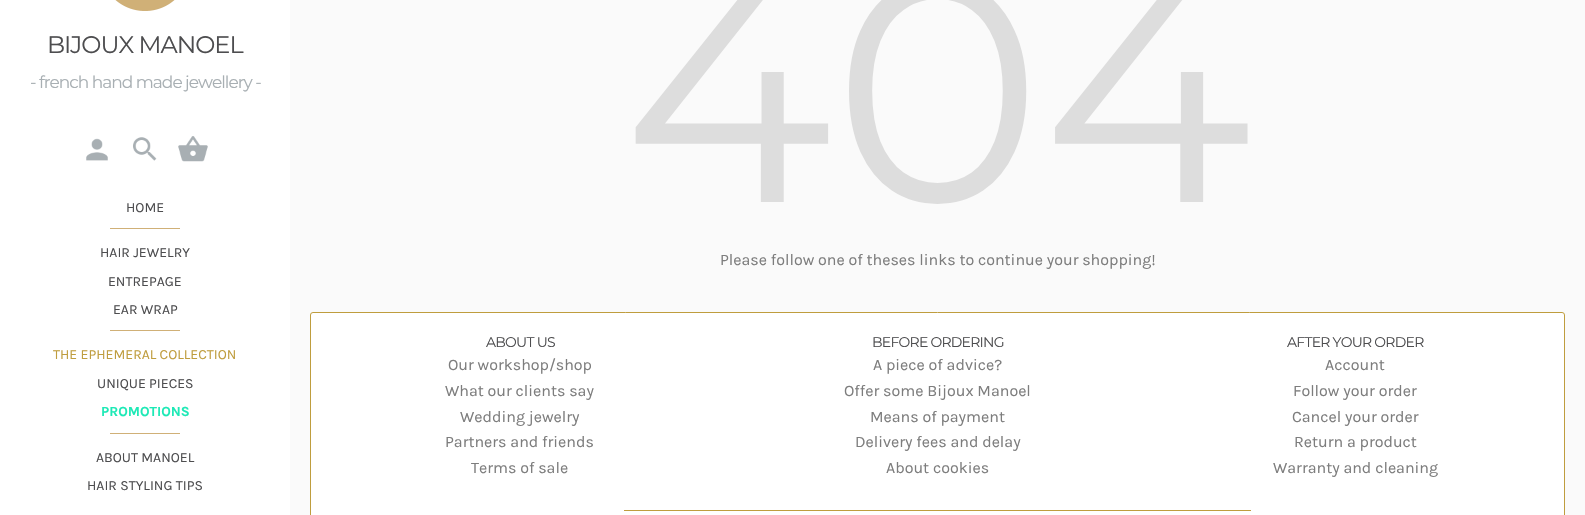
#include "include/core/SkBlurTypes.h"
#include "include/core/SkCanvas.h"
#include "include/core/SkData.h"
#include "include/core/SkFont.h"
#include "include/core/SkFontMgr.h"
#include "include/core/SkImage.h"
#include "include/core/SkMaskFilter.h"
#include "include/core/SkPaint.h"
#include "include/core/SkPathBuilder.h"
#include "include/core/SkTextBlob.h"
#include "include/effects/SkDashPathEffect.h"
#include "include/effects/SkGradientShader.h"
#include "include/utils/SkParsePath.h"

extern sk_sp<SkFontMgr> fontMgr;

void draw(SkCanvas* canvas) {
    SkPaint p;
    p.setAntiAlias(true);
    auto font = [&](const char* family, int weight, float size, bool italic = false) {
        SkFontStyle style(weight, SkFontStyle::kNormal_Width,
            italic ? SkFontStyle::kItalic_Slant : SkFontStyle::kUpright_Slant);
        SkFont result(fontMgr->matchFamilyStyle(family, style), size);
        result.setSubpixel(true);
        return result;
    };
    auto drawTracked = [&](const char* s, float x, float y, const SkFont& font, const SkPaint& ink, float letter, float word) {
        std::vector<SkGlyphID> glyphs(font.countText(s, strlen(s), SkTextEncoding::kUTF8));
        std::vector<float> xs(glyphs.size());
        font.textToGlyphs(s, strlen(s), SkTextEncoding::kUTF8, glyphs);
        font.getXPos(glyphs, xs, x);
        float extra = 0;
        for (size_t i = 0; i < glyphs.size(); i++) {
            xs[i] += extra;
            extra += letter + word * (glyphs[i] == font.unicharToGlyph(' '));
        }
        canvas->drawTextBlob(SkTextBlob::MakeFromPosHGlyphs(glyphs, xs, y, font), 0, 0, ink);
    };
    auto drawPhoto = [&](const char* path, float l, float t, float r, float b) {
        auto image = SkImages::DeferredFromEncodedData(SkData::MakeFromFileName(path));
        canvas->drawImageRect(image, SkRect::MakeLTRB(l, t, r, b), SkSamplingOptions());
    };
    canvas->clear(0xFFFFFFFF);
    drawPhoto("media/1.png", 115, 0, 175, 11);
    auto font1 = font("Montserrat", 400, 24);
    p.setColor(0xFF4D4D4F);
    drawTracked("BIJOUX MANOEL", 47, 53, font1, p, -1, 0);
    auto font2 = font("Montserrat", 400, 17);
    p.setColor(0xFFA8AFB3);
    drawTracked("- french hand made jewellery -", 30, 88, font2, p, -1, 0);
    drawPhoto("media/2.png", 86, 138, 108, 161);
    drawPhoto("media/3.png", 133, 137, 157, 161);
    drawPhoto("media/4.png", 178, 136, 208, 162);
    p.setColor(0xFFD0B077);
    canvas->drawRect(SkRect::MakeLTRB(110, 228, 180, 229), p);
    auto font3 = font("Karla", 400, 14);
    p.setColor(0xFF4D4D4F);
    {
        const struct { const char* s; float x, y; } items[] = {
            {"HOME", 126, 212},
            {"HAIR JEWELRY", 100, 257},
            {"ENTREPAGE", 108, 286},
        };
        for (auto [s, x, y] : items) {
            canvas->drawString(s, x, y, font3, p);
        }
    }
    p.setColor(0xFFD0B077);
    canvas->drawRect(SkRect::MakeLTRB(110, 330, 180, 331), p);
    p.setColor(0xFF4D4D4F);
    canvas->drawString("EAR WRAP", 113, 314, font3, p);
    p.setColor(0xFFBF9D3E);
    canvas->drawString("THE EPHEMERAL COLLECTION", 53, 359, font3, p);
    p.setColor(0xFF4D4D4F);
    canvas->drawString("UNIQUE PIECES", 97, 388, font3, p);
    p.setColor(0xFFD0B077);
    canvas->drawRect(SkRect::MakeLTRB(110, 433, 180, 434), p);
    auto font4 = font("Karla", 700, 14);
    p.setColor(0xFF1DE9B6);
    canvas->drawString("PROMOTIONS", 101, 416, font4, p);
    p.setColor(0xFF4D4D4F);
    canvas->drawString("ABOUT MANOEL", 96, 462, font3, p);
    canvas->drawString("HAIR STYLING TIPS", 87, 490, font3, p);
    p.setColor(0xFFFAFAFA);
    canvas->drawRect(SkRect::MakeLTRB(290, 0, 1585, 515), p);
    auto font5 = font("Montserrat", 400, 317);
    p.setColor(0xFFDDDDDD);
    canvas->drawString("404", 623, 202, font5, p);
    auto font6 = font("Karla", 400, 16);
    p.setColor(0xFF7D7D7D);
    canvas->drawString("Please follow one of theses links to continue your shopping!", 720, 265, font6, p);
    p.setColor(0xFFFFFFFF);
    canvas->drawRoundRect(SkRect::MakeLTRB(310.5f, 312.5f, 1564.5f, 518.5f), 2.5f, 2.5f, p);
    p.setStyle(SkPaint::kStroke_Style);
    p.setStrokeWidth(1);
    p.setColor(0xFFBF9D3E);
    canvas->drawRoundRect(SkRect::MakeLTRB(310.5f, 312.5f, 1564.5f, 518.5f), 2.5f, 2.5f, p);
    auto font7 = font("Montserrat", 400, 14);
    p.setStyle(SkPaint::kFill_Style);
    p.setColor(0xFF4D4D4F);
    drawTracked("ABOUT US", 486, 347, font7, p, -0.75f, 0);
    p.setColor(0xFF7D7D7D);
    {
        const struct { const char* s; float x, y; } items[] = {
            {"Our workshop/shop", 448, 370},
            {"What our clients say", 445, 396},
            {"Wedding jewelry", 460, 422},
            {"Partners and friends", 445, 447},
            {"Terms of sale", 471, 473},
        };
        for (auto [s, x, y] : items) {
            canvas->drawString(s, x, y, font6, p);
        }
    }
    p.setColor(0xFF4D4D4F);
    drawTracked("BEFORE ORDERING", 872, 347, font7, p, -0.75f, 0);
    p.setColor(0xFF7D7D7D);
    {
        const struct { const char* s; float x, y; } items[] = {
            {"A piece of advice?", 873, 370},
            {"Offer some Bijoux Manoel", 844, 396},
            {"Means of payment", 870, 422},
            {"Delivery fees and delay", 855, 447},
            {"About cookies", 886, 473},
        };
        for (auto [s, x, y] : items) {
            canvas->drawString(s, x, y, font6, p);
        }
    }
    p.setColor(0xFF4D4D4F);
    drawTracked("AFTER YOUR ORDER", 1287, 347, font7, p, -0.75f, 0);
    p.setColor(0xFF7D7D7D);
    {
        const struct { const char* s; float x, y; } items[] = {
            {"Account", 1325, 370},
            {"Follow your order", 1293, 396},
            {"Cancel your order", 1292, 422},
            {"Return a product", 1294, 447},
            {"Warranty and cleaning", 1273, 473},
        };
        for (auto [s, x, y] : items) {
            canvas->drawString(s, x, y, font6, p);
        }
    }
    p.setColor(0xFFBF9D3E);
    canvas->drawRect(SkRect::MakeLTRB(624, 510, 1251, 511), p);
}
